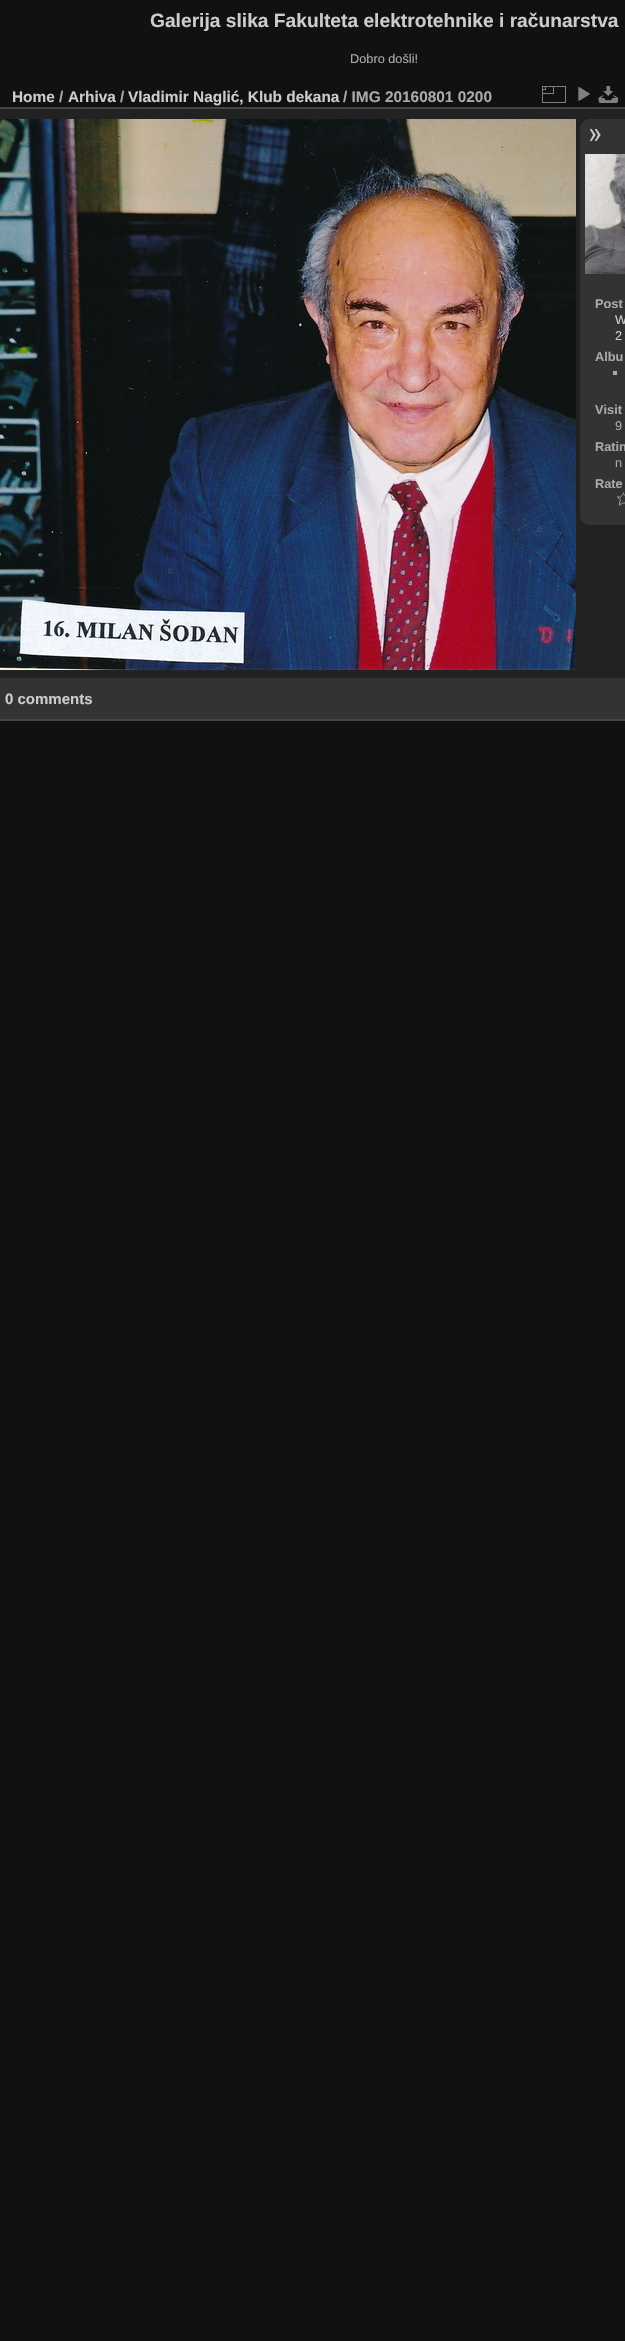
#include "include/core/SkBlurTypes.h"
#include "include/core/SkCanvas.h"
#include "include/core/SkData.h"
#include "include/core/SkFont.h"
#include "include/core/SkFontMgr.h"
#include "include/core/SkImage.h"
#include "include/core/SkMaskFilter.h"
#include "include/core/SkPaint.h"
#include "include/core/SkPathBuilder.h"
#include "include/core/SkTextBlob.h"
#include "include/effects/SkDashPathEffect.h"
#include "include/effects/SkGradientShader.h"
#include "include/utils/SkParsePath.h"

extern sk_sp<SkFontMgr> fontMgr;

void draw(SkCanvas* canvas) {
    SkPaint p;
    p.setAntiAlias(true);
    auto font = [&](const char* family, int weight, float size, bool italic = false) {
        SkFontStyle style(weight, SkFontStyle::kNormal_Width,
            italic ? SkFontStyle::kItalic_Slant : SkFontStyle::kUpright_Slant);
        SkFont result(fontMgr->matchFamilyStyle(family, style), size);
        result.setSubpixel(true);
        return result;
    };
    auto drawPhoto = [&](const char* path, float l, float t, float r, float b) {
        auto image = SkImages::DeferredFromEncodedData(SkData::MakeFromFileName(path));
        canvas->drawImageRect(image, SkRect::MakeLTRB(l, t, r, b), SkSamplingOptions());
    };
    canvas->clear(0xFF111111);
    auto font1 = font("Liberation Sans", 700, 19.2f);
    p.setColor(0xFFCCCCCC);
    canvas->drawString("Galerija slika Fakulteta elektrotehnike i računarstva", 150, 27, font1, p);
    auto font2 = font("Liberation Sans", 400, 12.75f);
    p.setColor(0xFFAAAAAA);
    canvas->drawString("Dobro došli!", 350, 63, font2, p);
    {
        const struct { float l, t, r, b; SkColor color; } items[] = {
            {0, 109, 625, 678, 0xFF222222},
            {0, 719, 625, 721, 0xFF444444},
            {0, 107, 625, 109, 0xFF444444},
        };
        for (auto [l, t, r, b, color] : items) {
            p.setColor(color);
            canvas->drawRect(SkRect::MakeLTRB(l, t, r, b), p);
        }
    }
    auto font3 = font("Liberation Sans", 700, 15.4f);
    p.setColor(0xFFCCCCCC);
    canvas->drawString("Home", 12, 102, font3, p);
    p.setColor(0xFFAAAAAA);
    canvas->drawString("/", 59, 102, font3, p);
    p.setColor(0xFFCCCCCC);
    canvas->drawString("Arhiva", 68, 102, font3, p);
    p.setColor(0xFFAAAAAA);
    canvas->drawString("/", 120, 102, font3, p);
    p.setColor(0xFFCCCCCC);
    canvas->drawString("Vladimir Naglić, Klub dekana", 128, 102, font3, p);
    p.setColor(0xFFAAAAAA);
    canvas->drawString("/ IMG 20160801 0200", 343, 102, font3, p);
    drawPhoto("media/1.png", 542, 86, 566, 103);
    drawPhoto("media/2.png", 578, 87, 590, 101);
    drawPhoto("media/3.png", 598, 86, 619, 103);
    drawPhoto("media/4.png", 0, 119, 576, 670);
    p.setColor(0xFF333333);
    canvas->drawPath(SkPathBuilder().moveTo(590, 119).lineTo(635, 119).lineTo(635, 525).lineTo(590, 525).cubicTo(584.5f, 525, 580, 520.5f, 580, 515).lineTo(580, 129).cubicTo(580, 123.5f, 584.5f, 119, 590, 119).close().detach(), p);
    drawPhoto("media/5.png", 589, 129, 601, 141);
    drawPhoto("media/6.png", 585, 154, 625, 274);
    auto font4 = font("Liberation Sans", 700, 12.75f);
    p.setColor(0xFFAAAAAA);
    canvas->drawString("Post", 595, 308, font4, p);
    p.setColor(0xFFCCCCCC);
    canvas->drawString("W", 615, 324, font2, p);
    canvas->drawString("2", 615, 340, font2, p);
    p.setColor(0xFFAAAAAA);
    canvas->drawString("Albu", 595, 361, font4, p);
    canvas->drawRect(SkRect::MakeLTRB(613, 371, 617, 375), p);
    canvas->drawString("Visit", 595, 414, font4, p);
    canvas->drawString("9", 615, 430, font2, p);
    canvas->drawString("Ratin", 595, 451, font4, p);
    canvas->drawString("n", 615, 467, font2, p);
    canvas->drawString("Rate", 595, 488, font4, p);
    drawPhoto("media/7.png", 617, 492, 625, 506);
    p.setColor(0xFF333333);
    canvas->drawRect(SkRect::MakeLTRB(0, 678, 625, 719), p);
    auto font5 = font("Liberation Sans", 700, 15);
    p.setColor(0xFFCCCCCC);
    canvas->drawString("0 comments", 5, 704, font5, p);
}
